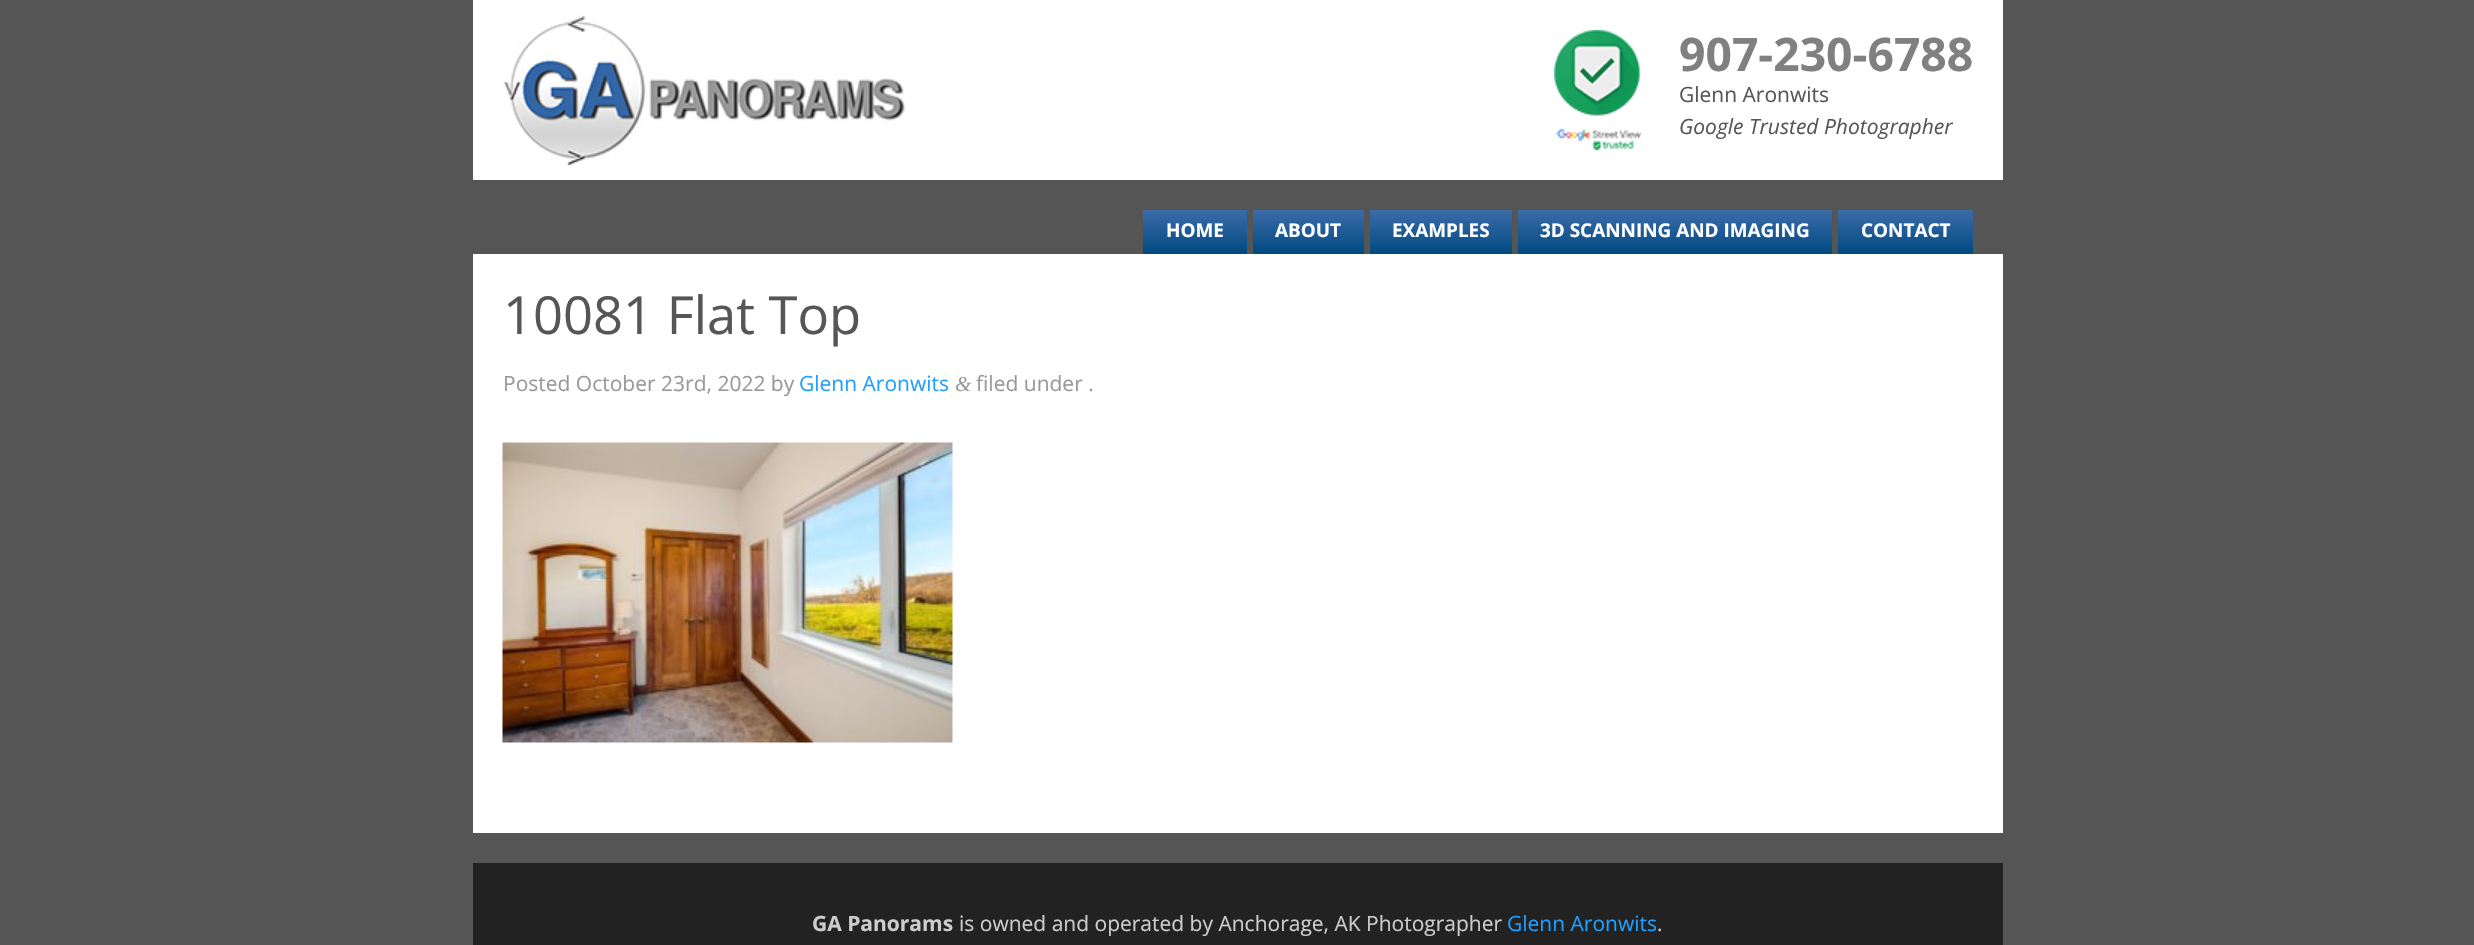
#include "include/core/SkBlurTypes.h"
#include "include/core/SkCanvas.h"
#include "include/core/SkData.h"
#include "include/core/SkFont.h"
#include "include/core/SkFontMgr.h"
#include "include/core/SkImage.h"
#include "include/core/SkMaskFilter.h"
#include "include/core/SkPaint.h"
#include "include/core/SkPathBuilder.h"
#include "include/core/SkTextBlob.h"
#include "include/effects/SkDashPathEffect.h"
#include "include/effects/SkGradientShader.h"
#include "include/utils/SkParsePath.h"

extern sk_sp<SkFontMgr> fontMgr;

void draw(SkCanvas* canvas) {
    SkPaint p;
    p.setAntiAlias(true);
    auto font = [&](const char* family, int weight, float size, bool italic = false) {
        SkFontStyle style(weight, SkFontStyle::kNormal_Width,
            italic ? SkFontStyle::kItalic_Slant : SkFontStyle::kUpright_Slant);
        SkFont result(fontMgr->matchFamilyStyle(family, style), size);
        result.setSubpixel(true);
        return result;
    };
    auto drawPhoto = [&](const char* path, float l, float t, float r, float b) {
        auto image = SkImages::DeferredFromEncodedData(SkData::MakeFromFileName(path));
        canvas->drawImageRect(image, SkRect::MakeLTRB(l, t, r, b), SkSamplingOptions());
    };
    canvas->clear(0xFF555555);
    p.setColor(0xFFFFFFFF);
    canvas->drawRect(SkRect::MakeLTRB(473, 0, 2003, 180), p);
    drawPhoto("media/1.png", 503, 15, 905, 165);
    drawPhoto("media/2.png", 1553, 30, 1642, 150);
    auto font1 = font("Open Sans", 700, 46.25f);
    p.setColor(0xFF808080);
    canvas->drawString("907-230-6788", 1679, 71, font1, p);
    auto font2 = font("Open Sans", 400, 21);
    p.setColor(0xFF565656);
    canvas->drawString("Glenn Aronwits", 1679, 102, font2, p);
    auto font3 = font("Open Sans", 400, 21, true);
    canvas->drawString("Google Trusted Photographer", 1679, 134, font3, p);
    {
        const SkColor colors[] = {0xFF3C6CA9, 0xFF004982};
        const float stops[] = {0, 1};
        const SkPoint ends[] = {{1195, 210}, {1195, 254}};
        p.setShader(SkGradientShader::MakeLinear(ends, colors, stops, 2, SkTileMode::kClamp));
        p.setAlpha(255);
    }
    canvas->drawRect(SkRect::MakeLTRB(1143, 210, 1247, 254), p);
    auto font4 = font("Open Sans", 700, 18.9f);
    p.setShader(nullptr);
    p.setColor(0xFFFFFFFF);
    canvas->drawString("HOME", 1166, 237, font4, p);
    {
        const SkColor colors[] = {0xFF3C6CA9, 0xFF004982};
        const float stops[] = {0, 1};
        const SkPoint ends[] = {{1308, 210}, {1308, 254}};
        p.setShader(SkGradientShader::MakeLinear(ends, colors, stops, 2, SkTileMode::kClamp));
        p.setAlpha(255);
    }
    canvas->drawRect(SkRect::MakeLTRB(1253, 210, 1364, 254), p);
    p.setShader(nullptr);
    p.setColor(0xFFFFFFFF);
    canvas->drawString("ABOUT", 1275, 237, font4, p);
    {
        const SkColor colors[] = {0xFF3C6CA9, 0xFF004982};
        const float stops[] = {0, 1};
        const SkPoint ends[] = {{1441, 210}, {1441, 254}};
        p.setShader(SkGradientShader::MakeLinear(ends, colors, stops, 2, SkTileMode::kClamp));
        p.setAlpha(255);
    }
    canvas->drawRect(SkRect::MakeLTRB(1370, 210, 1512, 254), p);
    p.setShader(nullptr);
    p.setColor(0xFFFFFFFF);
    canvas->drawString("EXAMPLES", 1392, 237, font4, p);
    {
        const SkColor colors[] = {0xFF3C6CA9, 0xFF004982};
        const float stops[] = {0, 1};
        const SkPoint ends[] = {{1675, 210}, {1675, 254}};
        p.setShader(SkGradientShader::MakeLinear(ends, colors, stops, 2, SkTileMode::kClamp));
        p.setAlpha(255);
    }
    canvas->drawRect(SkRect::MakeLTRB(1518, 210, 1832, 254), p);
    p.setShader(nullptr);
    p.setColor(0xFFFFFFFF);
    canvas->drawString("3D SCANNING AND IMAGING", 1540, 237, font4, p);
    {
        const SkColor colors[] = {0xFF3C6CA9, 0xFF004982};
        const float stops[] = {0, 1};
        const SkPoint ends[] = {{1905, 210}, {1905, 254}};
        p.setShader(SkGradientShader::MakeLinear(ends, colors, stops, 2, SkTileMode::kClamp));
        p.setAlpha(255);
    }
    canvas->drawRect(SkRect::MakeLTRB(1838, 210, 1973, 254), p);
    p.setShader(nullptr);
    p.setColor(0xFFFFFFFF);
    canvas->drawString("CONTACT", 1861, 237, font4, p);
    canvas->drawRect(SkRect::MakeLTRB(473, 254, 2003, 833), p);
    auto font5 = font("Open Sans", 400, 52.5f);
    p.setColor(0xFF565656);
    canvas->drawString("10081 Flat Top", 503, 334, font5, p);
    p.setColor(0xFF999999);
    canvas->drawString("Posted October 23rd, 2022 by", 503, 391, font2, p);
    p.setColor(0xFF229FFF);
    canvas->drawString("Glenn Aronwits", 799, 391, font2, p);
    auto font6 = font("Liberation Serif", 400, 21, true);
    p.setColor(0xFF999999);
    canvas->drawString("&", 955, 391, font6, p);
    canvas->drawString("filed under .", 976, 391, font2, p);
    drawPhoto("media/3.png", 502, 442, 953, 743);
    p.setColor(0xFF222222);
    canvas->drawRect(SkRect::MakeLTRB(473, 863, 2003, 945), p);
    auto font7 = font("Open Sans", 700, 21);
    p.setColor(0xFFCCCCCC);
    canvas->drawString("GA Panorams", 812, 931, font7, p);
    canvas->drawString("is owned and operated by Anchorage, AK Photographer", 959, 931, font2, p);
    p.setColor(0xFF229FFF);
    canvas->drawString("Glenn Aronwits", 1507, 931, font2, p);
    p.setColor(0xFFCCCCCC);
    canvas->drawString(".", 1657, 931, font2, p);
}
